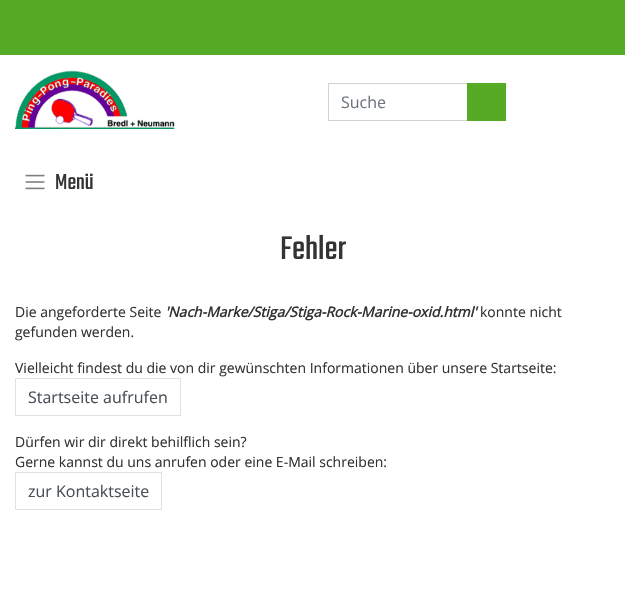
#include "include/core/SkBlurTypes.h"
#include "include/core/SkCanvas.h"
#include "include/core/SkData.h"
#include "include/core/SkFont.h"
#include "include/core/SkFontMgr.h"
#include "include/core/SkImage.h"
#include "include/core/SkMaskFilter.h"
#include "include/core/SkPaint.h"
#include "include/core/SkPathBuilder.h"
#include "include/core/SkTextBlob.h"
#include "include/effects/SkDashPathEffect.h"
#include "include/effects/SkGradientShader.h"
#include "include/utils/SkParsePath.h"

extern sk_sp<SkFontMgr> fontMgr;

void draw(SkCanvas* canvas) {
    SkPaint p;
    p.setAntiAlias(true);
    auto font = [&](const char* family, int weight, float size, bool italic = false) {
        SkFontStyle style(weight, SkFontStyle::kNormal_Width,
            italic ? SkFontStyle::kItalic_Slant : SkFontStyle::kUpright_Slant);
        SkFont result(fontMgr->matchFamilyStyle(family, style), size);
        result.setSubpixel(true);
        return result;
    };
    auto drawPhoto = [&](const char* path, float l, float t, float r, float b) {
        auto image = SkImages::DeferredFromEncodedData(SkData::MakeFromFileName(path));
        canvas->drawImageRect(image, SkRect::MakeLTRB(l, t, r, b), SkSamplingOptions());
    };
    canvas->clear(0xFFFFFFFF);
    p.setColor(0xFF55AB26);
    canvas->drawRect(SkRect::MakeLTRB(0, 0, 625, 55), p);
    drawPhoto("media/1.png", 15, 70, 175, 129);
    p.setStyle(SkPaint::kStroke_Style);
    p.setStrokeWidth(1);
    p.setColor(0xFFCED4DA);
    canvas->drawRect(SkRect::MakeLTRB(328.5f, 83.5f, 467.5f, 120.5f), p);
    auto font1 = font("Open Sans", 400, 16);
    p.setStyle(SkPaint::kFill_Style);
    p.setColor(0xFF6C757D);
    canvas->drawString("Suche", 341, 108, font1, p);
    p.setColor(0xFF55AB26);
    canvas->drawRect(SkRect::MakeLTRB(467, 83, 506, 121), p);
    drawPhoto("media/2.png", 25, 174, 45, 190);
    auto font2 = font("Teko", 300, 24);
    p.setColor(0xFF333333);
    canvas->drawString("Menü", 55, 189, font2, p);
    auto font3 = font("Teko", 300, 36);
    canvas->drawString("Fehler", 280, 259, font3, p);
    auto font4 = font("Open Sans", 400, 14);
    canvas->drawString("Die angeforderte Seite", 15, 317, font4, p);
    auto font5 = font("Open Sans", 700, 14, true);
    canvas->drawString("'Nach-Marke/Stiga/Stiga-Rock-Marine-oxid.html'", 165, 317, font5, p);
    {
        const struct { const char* s; float x, y; } items[] = {
            {"konnte nicht", 480, 317},
            {"gefunden werden.", 15, 337},
            {"Vielleicht findest du die von dir gewünschten Informationen über unsere Startseite:", 15, 373},
        };
        for (auto [s, x, y] : items) {
            canvas->drawString(s, x, y, font4, p);
        }
    }
    p.setStyle(SkPaint::kStroke_Style);
    p.setColor(0xFFDEE2E6);
    canvas->drawRect(SkRect::MakeLTRB(15.5f, 378.5f, 180.5f, 415.5f), p);
    p.setStyle(SkPaint::kFill_Style);
    p.setColor(0xFF495057);
    canvas->drawString("Startseite aufrufen", 28, 403, font1, p);
    p.setColor(0xFF333333);
    canvas->drawString("Dürfen wir dir direkt behilflich sein?", 15, 447, font4, p);
    canvas->drawString("Gerne kannst du uns anrufen oder eine E-Mail schreiben:", 15, 467, font4, p);
    p.setStyle(SkPaint::kStroke_Style);
    p.setColor(0xFFDEE2E6);
    canvas->drawRect(SkRect::MakeLTRB(15.5f, 472.5f, 161.5f, 509.5f), p);
    p.setStyle(SkPaint::kFill_Style);
    p.setColor(0xFF495057);
    canvas->drawString("zur Kontaktseite", 28, 497, font1, p);
}
